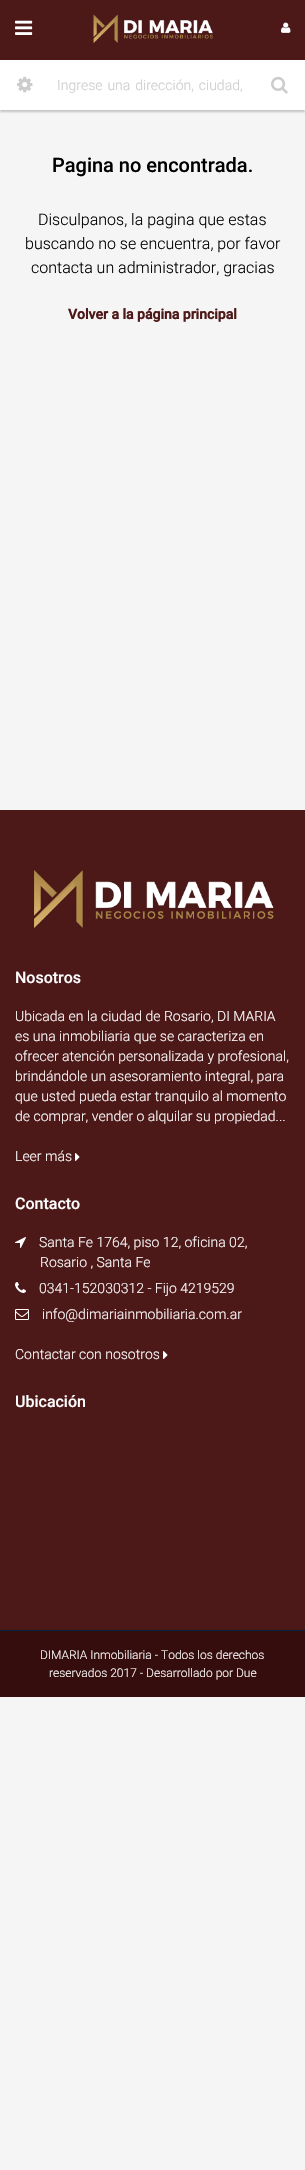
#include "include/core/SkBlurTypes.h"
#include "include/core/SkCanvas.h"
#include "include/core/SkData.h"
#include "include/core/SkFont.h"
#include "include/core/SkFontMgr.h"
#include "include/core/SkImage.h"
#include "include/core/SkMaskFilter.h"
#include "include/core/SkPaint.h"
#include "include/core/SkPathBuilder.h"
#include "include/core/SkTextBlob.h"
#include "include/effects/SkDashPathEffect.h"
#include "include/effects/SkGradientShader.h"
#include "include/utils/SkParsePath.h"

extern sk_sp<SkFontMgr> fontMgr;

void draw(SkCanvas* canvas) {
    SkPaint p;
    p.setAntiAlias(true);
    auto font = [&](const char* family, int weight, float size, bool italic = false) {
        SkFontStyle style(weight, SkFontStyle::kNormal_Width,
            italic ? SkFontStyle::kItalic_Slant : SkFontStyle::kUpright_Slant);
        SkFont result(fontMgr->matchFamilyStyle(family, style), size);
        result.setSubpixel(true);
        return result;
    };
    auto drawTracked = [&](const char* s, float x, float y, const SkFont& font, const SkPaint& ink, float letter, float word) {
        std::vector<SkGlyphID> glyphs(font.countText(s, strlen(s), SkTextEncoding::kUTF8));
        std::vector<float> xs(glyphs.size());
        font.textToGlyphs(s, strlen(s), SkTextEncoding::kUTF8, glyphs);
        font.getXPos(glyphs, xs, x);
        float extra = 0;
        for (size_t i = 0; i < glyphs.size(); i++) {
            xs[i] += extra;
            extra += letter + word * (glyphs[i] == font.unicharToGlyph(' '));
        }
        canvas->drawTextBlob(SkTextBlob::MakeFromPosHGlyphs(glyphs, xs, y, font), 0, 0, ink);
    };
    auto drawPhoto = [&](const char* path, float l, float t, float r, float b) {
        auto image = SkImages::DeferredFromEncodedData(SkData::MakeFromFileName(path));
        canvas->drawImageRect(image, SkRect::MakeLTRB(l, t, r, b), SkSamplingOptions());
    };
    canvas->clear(0xFFF5F5F5);
    p.setColor(0xFF4D1818);
    canvas->drawRect(SkRect::MakeLTRB(0, 0, 305, 60), p);
    drawPhoto("media/1.png", 15, 20, 33, 35);
    drawPhoto("media/2.png", 93, 14, 213, 43);
    drawPhoto("media/3.png", 281, 22, 291, 33);
    p.setColor(0x33000000);
    p.setMaskFilter(SkMaskFilter::MakeBlur(kNormal_SkBlurStyle, 1));
    canvas->drawRect(SkRect::MakeLTRB(0, 62, 305, 112), p);
    p.setMaskFilter(nullptr);
    p.setColor(0xFFFFFFFF);
    canvas->drawRect(SkRect::MakeLTRB(0, 60, 305, 110), p);
    drawPhoto("media/4.png", 17, 76, 33, 93);
    auto font1 = font("Roboto", 300, 14);
    p.setColor(0xFFCCCCCC);
    drawTracked("Ingrese una dirección, ciudad,", 57, 90, font1, p, 0, 1.5f);
    drawPhoto("media/5.png", 271, 76, 288, 94);
    auto font2 = font("Roboto", 500, 20);
    p.setColor(0xFF000000);
    canvas->drawString("Pagina no encontrada.", 52, 172, font2, p);
    auto font3 = font("Roboto", 300, 16);
    {
        const struct { const char* s; float x, y; } items[] = {
            {"Disculpanos, la pagina que estas", 38, 225},
            {"buscando no se encuentra, por favor", 25, 249},
            {"contacta un administrador, gracias", 31, 273},
        };
        for (auto [s, x, y] : items) {
            canvas->drawString(s, x, y, font3, p);
        }
    }
    auto font4 = font("Roboto", 700, 14);
    p.setColor(0xFF4D1818);
    canvas->drawString("Volver a la página principal", 68, 319, font4, p);
    canvas->drawRect(SkRect::MakeLTRB(0, 810, 305, 1630), p);
    drawPhoto("media/6.png", 33, 870, 274, 928);
    auto font5 = font("Roboto", 500, 16);
    p.setColor(0xFFFFFFFF);
    canvas->drawString("Nosotros", 15, 983, font5, p);
    {
        const struct { const char* s; float x, y; } items[] = {
            {"Ubicada en la ciudad de Rosario, DI MARIA", 15, 1021},
            {"es una inmobiliaria que se caracteriza en", 15, 1041},
            {"ofrecer atención personalizada y profesional,", 15, 1061},
            {"brindándole un asesoramiento integral, para", 15, 1081},
            {"que usted pueda estar tranquilo al momento", 15, 1101},
            {"de comprar, vender o alquilar su propiedad...", 15, 1121},
            {"Leer más", 15, 1161},
        };
        for (auto [s, x, y] : items) {
            canvas->drawString(s, x, y, font1, p);
        }
    }
    drawPhoto("media/7.png", 75, 1153, 80, 1161);
    canvas->drawString("Contacto", 15, 1209, font5, p);
    drawPhoto("media/8.png", 15, 1237, 26, 1248);
    canvas->drawString("Santa Fe 1764, piso 12, oficina 02,", 39, 1247, font1, p);
    canvas->drawString("Rosario , Santa Fe", 40, 1267, font1, p);
    drawPhoto("media/9.png", 15, 1282, 26, 1293);
    canvas->drawString("0341-152030312 - Fijo 4219529", 39, 1293, font1, p);
    drawPhoto("media/10.png", 15, 1309, 29, 1320);
    canvas->drawString("info@dimariainmobiliaria.com.ar", 42, 1319, font1, p);
    canvas->drawString("Contactar con nosotros", 15, 1359, font1, p);
    drawPhoto("media/7.png", 163, 1351, 168, 1359);
    canvas->drawString("Ubicación", 15, 1407, font5, p);
    p.setColor(0xFF350D0D);
    canvas->drawRect(SkRect::MakeLTRB(0, 1631, 305, 1697), p);
    p.setColor(0xFF00243F);
    canvas->drawRect(SkRect::MakeLTRB(0, 1630, 305, 1631), p);
    auto font6 = font("Roboto", 300, 12);
    p.setColor(0xFFFFFFFF);
    canvas->drawString("DIMARIA Inmobiliaria - Todos los derechos", 40, 1659, font6, p);
    canvas->drawString("reservados 2017 - Desarrollado por Due", 49, 1677, font6, p);
}
